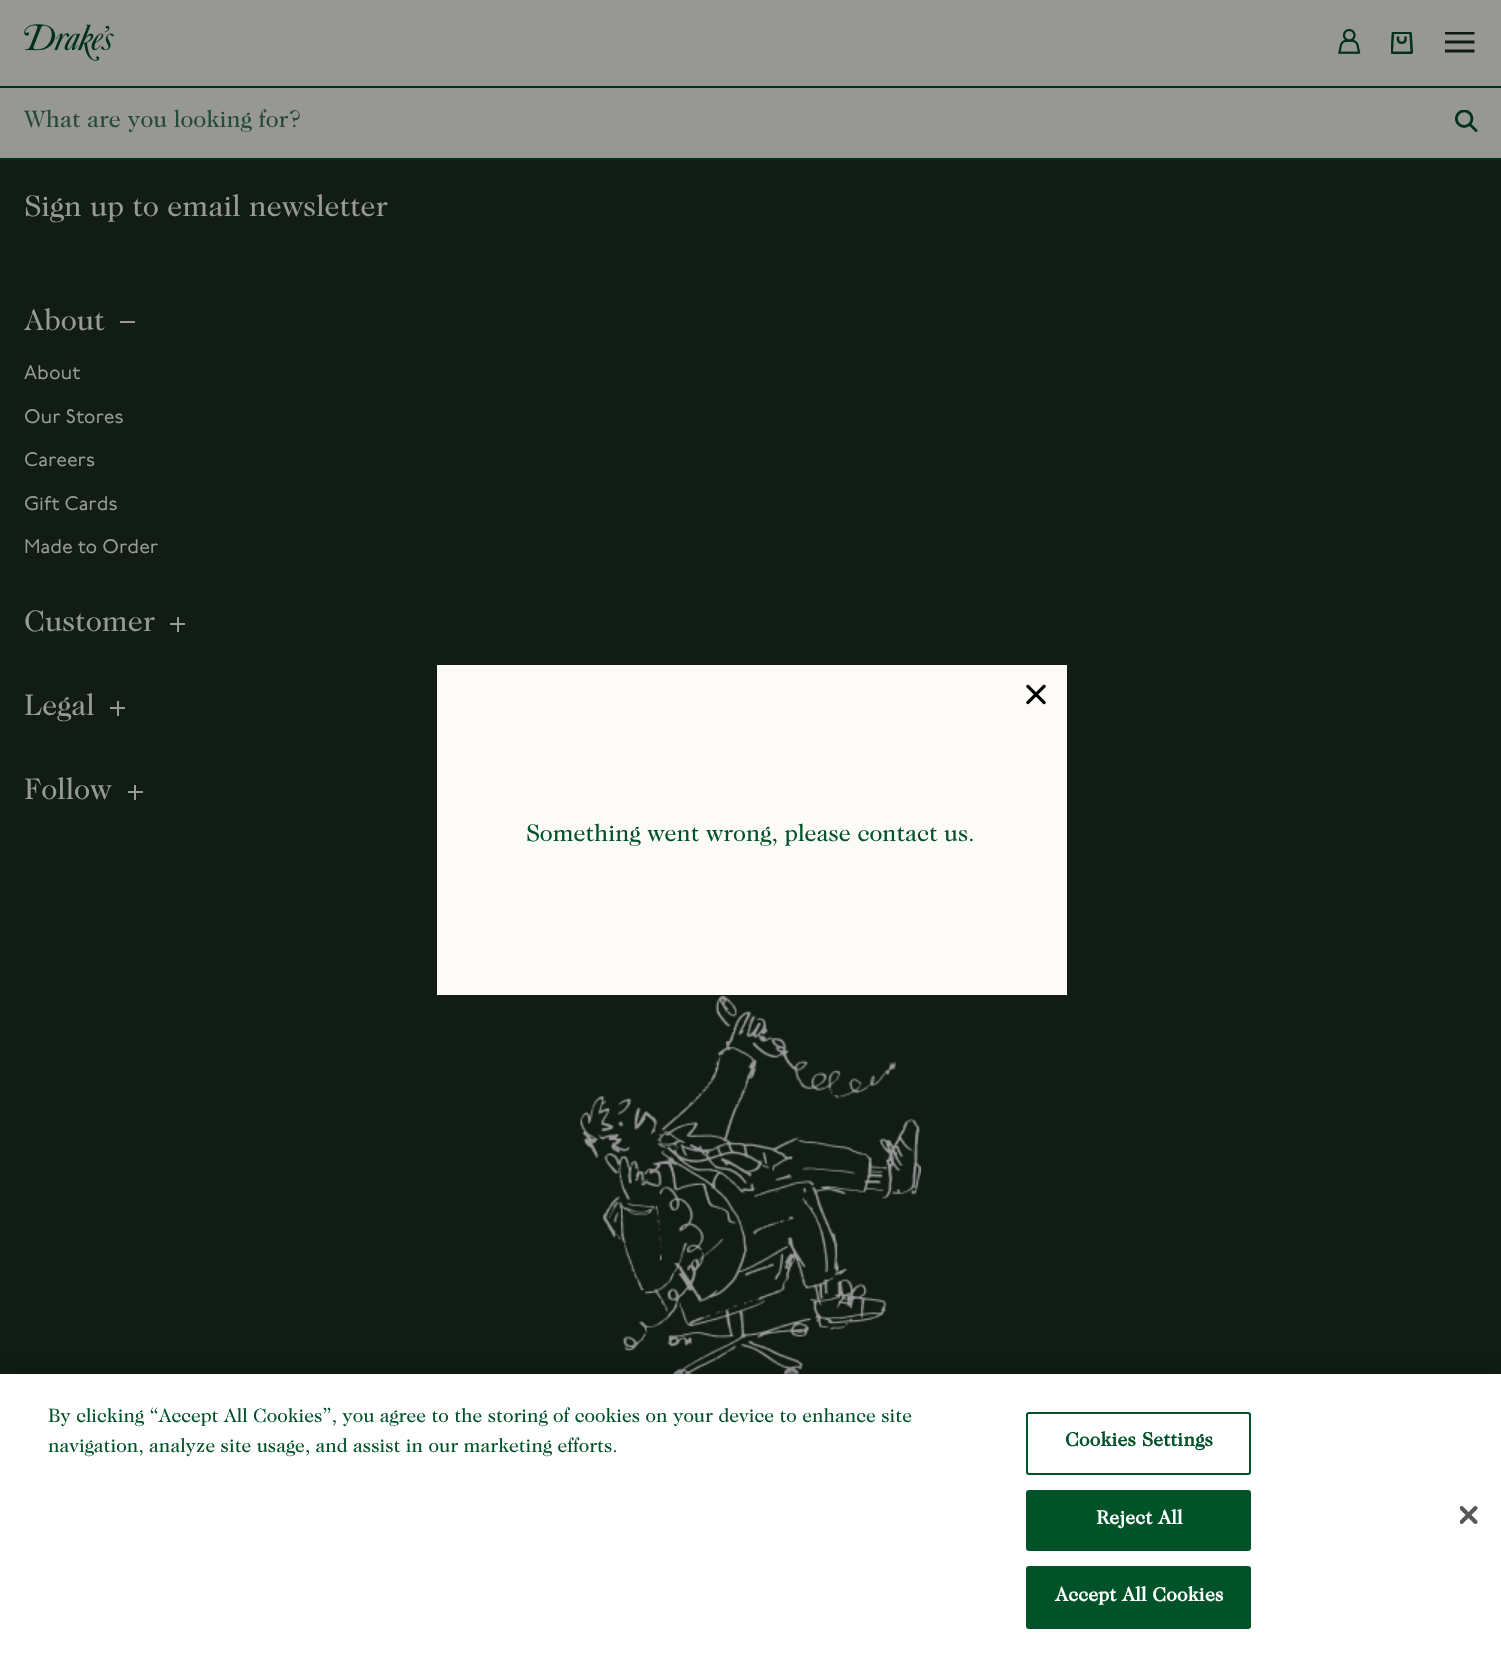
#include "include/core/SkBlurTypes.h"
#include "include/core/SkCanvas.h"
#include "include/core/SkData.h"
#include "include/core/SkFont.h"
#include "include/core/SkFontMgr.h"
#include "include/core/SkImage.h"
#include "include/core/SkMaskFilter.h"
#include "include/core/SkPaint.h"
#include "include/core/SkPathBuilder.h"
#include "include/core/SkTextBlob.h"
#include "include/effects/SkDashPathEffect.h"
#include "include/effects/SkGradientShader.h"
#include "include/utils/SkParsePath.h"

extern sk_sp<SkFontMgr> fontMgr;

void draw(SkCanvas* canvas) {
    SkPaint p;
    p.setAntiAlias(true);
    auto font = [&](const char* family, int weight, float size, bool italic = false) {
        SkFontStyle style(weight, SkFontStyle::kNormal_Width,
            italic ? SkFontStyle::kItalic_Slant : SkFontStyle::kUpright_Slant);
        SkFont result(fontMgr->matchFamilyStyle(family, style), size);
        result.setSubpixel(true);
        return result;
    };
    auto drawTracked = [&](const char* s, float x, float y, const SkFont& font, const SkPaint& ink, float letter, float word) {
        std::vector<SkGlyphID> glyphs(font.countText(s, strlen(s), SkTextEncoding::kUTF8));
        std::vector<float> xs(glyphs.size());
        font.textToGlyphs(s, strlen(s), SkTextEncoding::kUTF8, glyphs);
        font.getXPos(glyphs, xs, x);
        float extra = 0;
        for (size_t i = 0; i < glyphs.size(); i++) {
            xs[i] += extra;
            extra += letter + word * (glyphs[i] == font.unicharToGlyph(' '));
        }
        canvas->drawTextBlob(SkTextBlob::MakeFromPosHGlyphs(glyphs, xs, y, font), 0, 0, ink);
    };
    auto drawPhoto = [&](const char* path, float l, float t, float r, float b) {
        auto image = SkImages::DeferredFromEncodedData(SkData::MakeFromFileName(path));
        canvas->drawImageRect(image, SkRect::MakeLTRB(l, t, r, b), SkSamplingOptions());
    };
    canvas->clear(0xFF101C14);
    p.setColor(0xFF979795);
    canvas->drawRect(SkRect::MakeLTRB(0, 0, 1501, 158), p);
    drawPhoto("media/1.png", 24, 24, 114, 61);
    drawPhoto("media/2.png", 1338, 29, 1361, 54);
    drawPhoto("media/3.png", 1391, 32, 1413, 54);
    canvas->save();
    canvas->clipRect(SkRect::MakeLTRB(1445, 32, 1475, 53));
    p.setStyle(SkPaint::kStroke_Style);
    p.setStrokeWidth(3);
    p.setColor(0xFF0F1B14);
    canvas->drawPath(SkPathBuilder().moveTo(1444.5f, 33).lineTo(1474.5f, 33).moveTo(1444.5f, 42).lineTo(1474.5f, 42).moveTo(1444.5f, 51).lineTo(1474.5f, 51).detach(), p);
    canvas->restore();
    p.setStyle(SkPaint::kFill_Style);
    p.setColor(0xFF003119);
    canvas->drawRect(SkRect::MakeLTRB(0, 86, 1501, 88), p);
    canvas->drawRect(SkRect::MakeLTRB(0, 158, 1501, 160), p);
    auto font1 = font("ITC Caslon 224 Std", 400, 24);
    p.setColor(0xFF264A38);
    canvas->drawString("What are you looking for?", 24, 127, font1, p);
    drawPhoto("media/4.png", 1455, 110, 1478, 132);
    auto font2 = font("ITC Caslon 224 Std", 400, 30);
    p.setColor(0xFF999999);
    canvas->drawString("Sign up to email newsletter", 24, 216, font2, p);
    canvas->drawString("About", 24, 330, font2, p);
    canvas->drawRect(SkRect::MakeLTRB(120, 321, 135, 323), p);
    auto font3 = font("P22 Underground", 400, 19.5f);
    {
        const struct { const char* s; float x, y; } items[] = {
            {"About", 24, 379},
            {"Our Stores", 24, 423},
            {"Careers", 24, 466},
            {"Gift Cards", 24, 510},
            {"Made to Order", 24, 553},
        };
        for (auto [s, x, y] : items) {
            canvas->drawString(s, x, y, font3, p);
        }
    }
    canvas->drawString("Customer", 24, 631, font2, p);
    canvas->drawRect(SkRect::MakeLTRB(170, 623, 185, 625), p);
    canvas->drawRect(SkRect::MakeLTRB(177, 617, 179, 632), p);
    canvas->drawString("Legal", 24, 715, font2, p);
    canvas->drawRect(SkRect::MakeLTRB(110, 707, 125, 709), p);
    canvas->drawRect(SkRect::MakeLTRB(117, 701, 119, 716), p);
    canvas->drawString("Follow", 24, 799, font2, p);
    canvas->drawRect(SkRect::MakeLTRB(128, 791, 143, 793), p);
    canvas->drawRect(SkRect::MakeLTRB(134, 785, 136, 800), p);
    drawPhoto("media/5.png", 580, 996, 921, 1374);
    p.setColor(0xFFFCFBF8);
    canvas->drawRect(SkRect::MakeLTRB(437, 665, 1067, 995), p);
    drawPhoto("media/6.png", 1026, 684, 1046, 705);
    p.setColor(0xFF005229);
    canvas->drawString("Something went wrong, please contact us.", 526, 841, font1, p);
    p.setColor(0x33000000);
    p.setMaskFilter(SkMaskFilter::MakeBlur(kNormal_SkBlurStyle, 13.5f));
    canvas->drawRect(SkRect::MakeLTRB(0, 1374, 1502, 1659), p);
    p.setMaskFilter(nullptr);
    p.setColor(0xFFFFFFFF);
    canvas->drawRect(SkRect::MakeLTRB(0, 1374, 1501, 1659), p);
    auto font4 = font("ITC Caslon 224 Std", 400, 19.5f);
    p.setColor(0xFF005229);
    canvas->drawString("By clicking “Accept All Cookies”, you agree to the storing of cookies on your device to enhance site", 48, 1422, font4, p);
    canvas->drawString("navigation, analyze site usage, and assist in our marketing efforts.", 48, 1452, font4, p);
    p.setStyle(SkPaint::kStroke_Style);
    p.setStrokeWidth(2);
    canvas->drawRoundRect(SkRect::MakeLTRB(1027, 1413, 1250, 1474), 2, 2, p);
    auto font5 = font("ITC Caslon 224 Std", 700, 19.5f);
    p.setStyle(SkPaint::kFill_Style);
    drawTracked("Cookies Settings", 1065, 1446, font5, p, 0.25f, 0);
    canvas->drawRoundRect(SkRect::MakeLTRB(1027, 1491, 1250, 1550), 2, 2, p);
    p.setStyle(SkPaint::kStroke_Style);
    canvas->drawRoundRect(SkRect::MakeLTRB(1027, 1491, 1250, 1550), 2, 2, p);
    p.setStyle(SkPaint::kFill_Style);
    p.setColor(0xFFFFFFFF);
    drawTracked("Reject All", 1096, 1524, font5, p, 0.25f, 0);
    p.setColor(0xFF005229);
    canvas->drawRoundRect(SkRect::MakeLTRB(1027, 1567, 1250, 1628), 2, 2, p);
    p.setStyle(SkPaint::kStroke_Style);
    canvas->drawRoundRect(SkRect::MakeLTRB(1027, 1567, 1250, 1628), 2, 2, p);
    p.setStyle(SkPaint::kFill_Style);
    p.setColor(0xFFFFFFFF);
    drawTracked("Accept All Cookies", 1055, 1601, font5, p, 0.25f, 0);
    drawPhoto("media/7.png", 1460, 1506, 1478, 1524);
}
